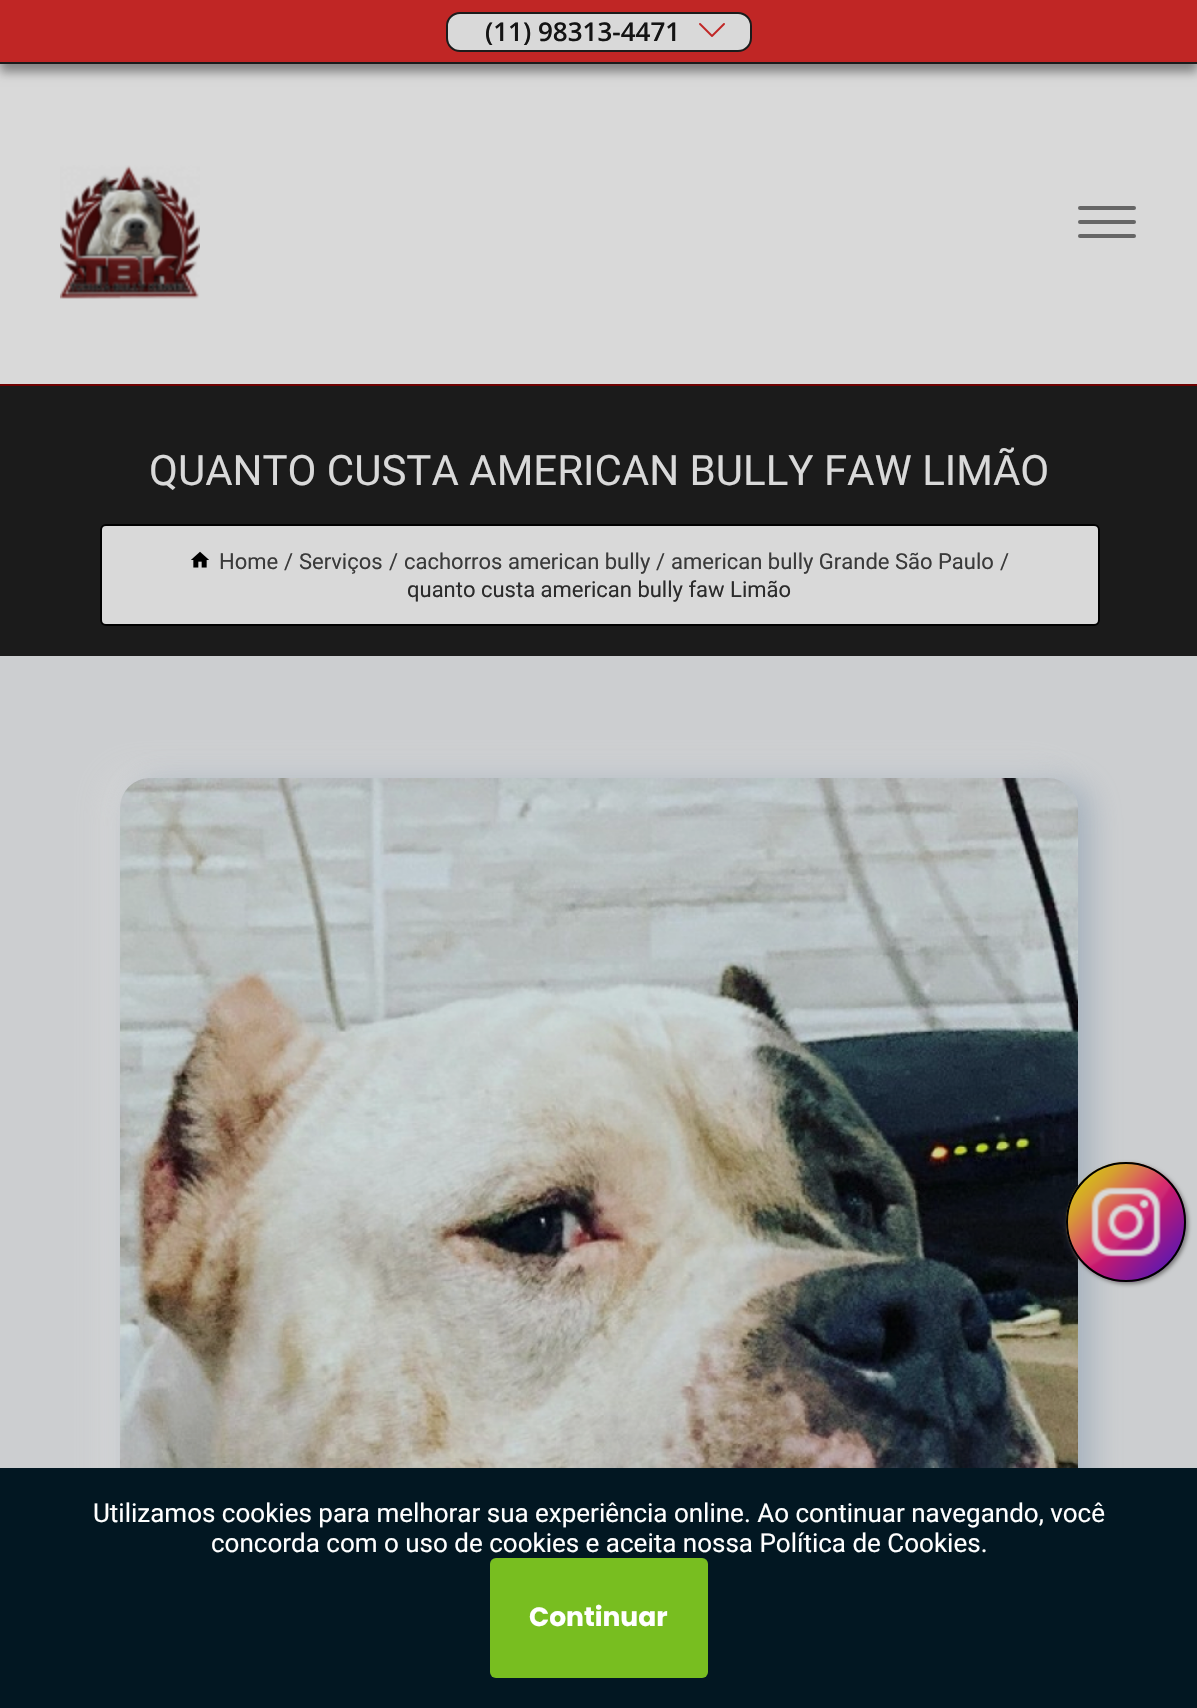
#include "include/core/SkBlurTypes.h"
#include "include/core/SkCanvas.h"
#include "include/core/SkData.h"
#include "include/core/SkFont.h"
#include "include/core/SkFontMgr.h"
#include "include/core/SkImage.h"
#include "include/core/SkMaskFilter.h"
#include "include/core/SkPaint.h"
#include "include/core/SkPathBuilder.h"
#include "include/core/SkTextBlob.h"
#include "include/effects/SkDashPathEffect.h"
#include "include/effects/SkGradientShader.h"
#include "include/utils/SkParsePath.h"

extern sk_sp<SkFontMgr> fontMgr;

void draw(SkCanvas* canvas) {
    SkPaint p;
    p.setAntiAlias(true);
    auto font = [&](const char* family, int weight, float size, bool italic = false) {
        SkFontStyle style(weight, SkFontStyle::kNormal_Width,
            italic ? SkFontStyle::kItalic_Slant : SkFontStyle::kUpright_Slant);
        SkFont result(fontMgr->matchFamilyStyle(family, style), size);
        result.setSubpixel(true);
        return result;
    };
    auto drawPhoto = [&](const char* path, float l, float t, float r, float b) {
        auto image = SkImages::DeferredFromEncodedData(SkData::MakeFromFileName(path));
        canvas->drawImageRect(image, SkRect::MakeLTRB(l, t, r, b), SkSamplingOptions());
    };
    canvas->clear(0xFFCCCED0);
    p.setColor(0xFFD9D9D9);
    canvas->drawRect(SkRect::MakeLTRB(0, 64, 1197, 384), p);
    p.setColor(0x66000000);
    p.setMaskFilter(SkMaskFilter::MakeBlur(kNormal_SkBlurStyle, 5));
    canvas->drawRect(SkRect::MakeLTRB(0, 8, 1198, 72), p);
    p.setMaskFilter(nullptr);
    p.setColor(0xFFC02625);
    canvas->drawRect(SkRect::MakeLTRB(0, 0, 1197, 62), p);
    p.setColor(0xFF1B1B1B);
    canvas->drawRect(SkRect::MakeLTRB(0, 62, 1197, 64), p);
    p.setColor(0xFFD9D9D9);
    canvas->drawRoundRect(SkRect::MakeLTRB(447, 13, 751, 51), 13, 13, p);
    p.setStyle(SkPaint::kStroke_Style);
    p.setStrokeWidth(2);
    p.setColor(0xFF1B1B1B);
    canvas->drawRoundRect(SkRect::MakeLTRB(447, 13, 751, 51), 13, 13, p);
    auto font1 = font("Open Sans", 600, 26);
    p.setStyle(SkPaint::kFill_Style);
    p.setColor(0xFF141414);
    canvas->drawString("(11) 98313-4471", 485, 41, font1, p);
    drawPhoto("media/1.png", 699, 23, 725, 37);
    drawPhoto("media/2.png", 60, 165, 200, 299);
    p.setColor(0xFF666666);
    canvas->drawRoundRect(SkRect::MakeLTRB(1078, 206, 1136, 210), 2, 2, p);
    canvas->drawRoundRect(SkRect::MakeLTRB(1078, 220, 1136, 224), 2, 2, p);
    canvas->drawRoundRect(SkRect::MakeLTRB(1078, 234, 1136, 238), 2, 2, p);
    p.setColor(0xFF1B1B1B);
    canvas->drawRect(SkRect::MakeLTRB(0, 386, 1197, 656), p);
    p.setColor(0xFF700202);
    canvas->drawRect(SkRect::MakeLTRB(0, 384, 1197, 386), p);
    auto font2 = font("Roboto", 400, 42);
    p.setColor(0xFFD9D9D9);
    canvas->drawString("QUANTO CUSTA AMERICAN BULLY FAW LIMÃO", 149, 485, font2, p);
    canvas->drawRoundRect(SkRect::MakeLTRB(101, 525, 1099, 625), 5, 5, p);
    p.setStyle(SkPaint::kStroke_Style);
    p.setColor(0xFF000000);
    canvas->drawRoundRect(SkRect::MakeLTRB(101, 525, 1099, 625), 5, 5, p);
    drawPhoto("media/3.png", 191, 551, 209, 568);
    auto font3 = font("Roboto", 400, 22);
    p.setStyle(SkPaint::kFill_Style);
    p.setColor(0xFF3A3A3A);
    {
        const struct { const char* s; float x, y; } items[] = {
            {"Home", 219, 569},
            {"/", 284, 569},
            {"Serviços", 299, 569},
            {"/", 389, 569},
            {"cachorros american bully", 404, 569},
            {"/", 656, 569},
            {"american bully Grande São Paulo", 671, 569},
            {"/", 1000, 569},
        };
        for (auto [s, x, y] : items) {
            canvas->drawString(s, x, y, font3, p);
        }
    }
    p.setColor(0xFF2B2B2B);
    canvas->drawString("quanto custa american bully faw Limão", 407, 597, font3, p);
    p.setColor(0xCCD9D9D9);
    p.setMaskFilter(SkMaskFilter::MakeBlur(kNormal_SkBlurStyle, 16));
    canvas->drawRoundRect(SkRect::MakeLTRB(108, 774, 1066, 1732), 30, 30, p);
    p.setMaskFilter(nullptr);
    p.setColor(0x7A748CA2);
    p.setMaskFilter(SkMaskFilter::MakeBlur(kNormal_SkBlurStyle, 16));
    canvas->drawRoundRect(SkRect::MakeLTRB(132, 782, 1090, 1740), 30, 30, p);
    p.setMaskFilter(nullptr);
    drawPhoto("media/4.png", 120, 778, 1078, 1468);
    p.setColor(0xFF747474);
    p.setMaskFilter(SkMaskFilter::MakeBlur(kNormal_SkBlurStyle, 2));
    canvas->drawRoundRect(SkRect::MakeLTRB(1068, 1164, 1188, 1284), 60, 60, p);
    p.setMaskFilter(nullptr);
    drawPhoto("media/5.png", 1066, 1162, 1186, 1282);
    p.setStyle(SkPaint::kStroke_Style);
    p.setColor(0xFF000000);
    canvas->drawCircle(1126, 1222, 59, p);
    p.setStyle(SkPaint::kFill_Style);
    p.setColor(0xFF021722);
    canvas->drawRect(SkRect::MakeLTRB(0, 1468, 1197, 1708), p);
    auto font4 = font("Roboto", 400, 26);
    p.setColor(0xFFFFFFFF);
    canvas->drawString("Utilizamos cookies para melhorar sua experiência online. Ao continuar navegando, você", 93, 1522, font4, p);
    canvas->drawString("concorda com o uso de cookies e aceita nossa Política de Cookies.", 211, 1552, font4, p);
    p.setColor(0xFF78BE20);
    canvas->drawRoundRect(SkRect::MakeLTRB(490, 1558, 708, 1678), 6, 6, p);
    auto font5 = font("Poppins", 700, 26.5f);
    p.setColor(0xFFFFFFFF);
    canvas->drawString("Continuar", 529, 1626, font5, p);
}
